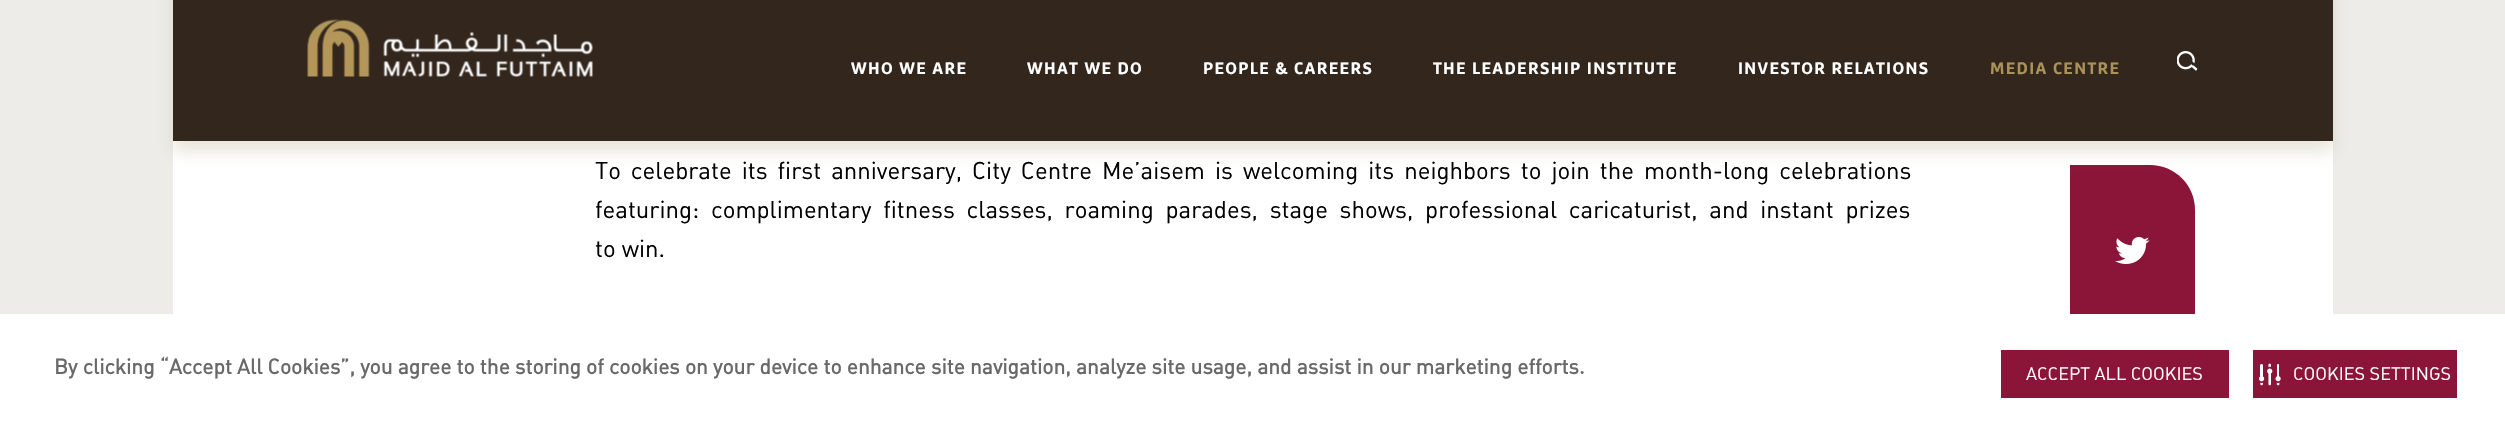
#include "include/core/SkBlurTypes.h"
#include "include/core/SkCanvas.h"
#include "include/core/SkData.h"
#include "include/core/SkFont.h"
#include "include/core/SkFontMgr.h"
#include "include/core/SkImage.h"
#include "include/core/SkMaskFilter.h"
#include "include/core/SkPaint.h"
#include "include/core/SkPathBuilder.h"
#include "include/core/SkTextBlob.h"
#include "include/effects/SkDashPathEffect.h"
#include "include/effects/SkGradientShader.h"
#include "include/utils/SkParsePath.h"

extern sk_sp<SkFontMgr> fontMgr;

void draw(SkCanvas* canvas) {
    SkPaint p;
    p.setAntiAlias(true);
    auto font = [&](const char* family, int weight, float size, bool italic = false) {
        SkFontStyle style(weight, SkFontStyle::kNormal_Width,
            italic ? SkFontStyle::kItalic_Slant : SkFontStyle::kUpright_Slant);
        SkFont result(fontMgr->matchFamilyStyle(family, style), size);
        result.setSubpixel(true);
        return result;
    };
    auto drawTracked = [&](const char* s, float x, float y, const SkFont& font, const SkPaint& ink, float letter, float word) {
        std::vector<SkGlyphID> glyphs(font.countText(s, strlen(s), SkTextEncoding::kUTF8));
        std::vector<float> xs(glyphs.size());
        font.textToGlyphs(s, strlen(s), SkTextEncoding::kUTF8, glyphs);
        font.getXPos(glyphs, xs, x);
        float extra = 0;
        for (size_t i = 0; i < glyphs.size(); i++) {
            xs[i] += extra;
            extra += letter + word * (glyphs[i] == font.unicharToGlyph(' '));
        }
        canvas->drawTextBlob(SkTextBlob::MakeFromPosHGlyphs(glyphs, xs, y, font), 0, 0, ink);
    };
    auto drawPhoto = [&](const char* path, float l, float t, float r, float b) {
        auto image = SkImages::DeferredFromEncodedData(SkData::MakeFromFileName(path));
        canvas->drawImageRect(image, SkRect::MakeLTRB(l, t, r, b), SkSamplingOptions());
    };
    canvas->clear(0xFFEDECE8);
    p.setColor(0xFFFFFFFF);
    canvas->drawRect(SkRect::MakeLTRB(173, 141, 2333, 314), p);
    p.setColor(0xFF8A1538);
    canvas->drawPath(SkPathBuilder().moveTo(2070, 165).lineTo(2150, 165).cubicTo(2175, 165, 2195, 185, 2195, 210).lineTo(2195, 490).lineTo(2115, 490).cubicTo(2090, 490, 2070, 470, 2070, 445).close().detach(), p);
    p.setColor(0x33937F4F);
    p.setMaskFilter(SkMaskFilter::MakeBlur(kNormal_SkBlurStyle, 7.5f));
    canvas->drawRect(SkRect::MakeLTRB(173, -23, 2333, 152), p);
    p.setMaskFilter(nullptr);
    p.setColor(0xFF32261D);
    canvas->drawRect(SkRect::MakeLTRB(173, 0, 2333, 141), p);
    drawPhoto("media/1.png", 307, 19, 593, 77);
    auto font1 = font("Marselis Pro", 700, 16.5f);
    p.setColor(0xFFFFFFFF);
    {
        const struct { const char* s; float x, y; } items[] = {
            {"WHO WE ARE", 851, 74},
            {"WHAT WE DO", 1027, 74},
            {"PEOPLE & CAREERS", 1203, 74},
            {"THE LEADERSHIP INSTITUTE", 1433, 74},
            {"INVESTOR RELATIONS", 1738, 74},
        };
        for (auto [s, x, y] : items) {
            drawTracked(s, x, y, font1, p, 1.35f, 0);
        }
    }
    p.setColor(0xFFAB9258);
    drawTracked("MEDIA CENTRE", 1990, 74, font1, p, 1.35f, 0);
    drawPhoto("media/2.png", 2177, 51, 2198, 71);
    auto font2 = font("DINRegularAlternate", 400, 24);
    p.setColor(0xFF000000);
    drawTracked("To celebrate its first anniversary, City Centre Me’aisem is welcoming its neighbors to join the month-long celebrations", 595, 179, font2, p, 0, 4);
    drawTracked("featuring: complimentary fitness classes, roaming parades, stage shows, professional caricaturist, and instant prizes", 595, 218, font2, p, 0, 5.75f);
    canvas->drawString("to win.", 595, 257, font2, p);
    drawPhoto("media/3.png", 2115, 237, 2150, 264);
    p.setColor(0xFFFFFFFF);
    canvas->drawRect(SkRect::MakeLTRB(0, 314, 2505, 445), p);
    auto font3 = font("DINRegularAlternate", 700, 21);
    p.setColor(0xFF696969);
    canvas->drawString("By clicking “Accept All Cookies”, you agree to the storing of cookies on your device to enhance site navigation, analyze site usage, and assist in our marketing efforts.", 54, 374, font3, p);
    p.setColor(0xFF8A1538);
    canvas->drawRect(SkRect::MakeLTRB(2001, 350, 2229, 398), p);
    auto font4 = font("DINRegularAlternate", 400, 18);
    p.setColor(0xFFFFFFFF);
    canvas->drawString("ACCEPT ALL COOKIES", 2026, 380, font4, p);
    p.setColor(0xFF8A1538);
    canvas->drawRect(SkRect::MakeLTRB(2253, 350, 2457, 398), p);
    drawPhoto("media/4.png", 2259, 363, 2281, 386);
    p.setColor(0xFFFFFFFF);
    canvas->drawString("COOKIES SETTINGS", 2293, 380, font4, p);
}
